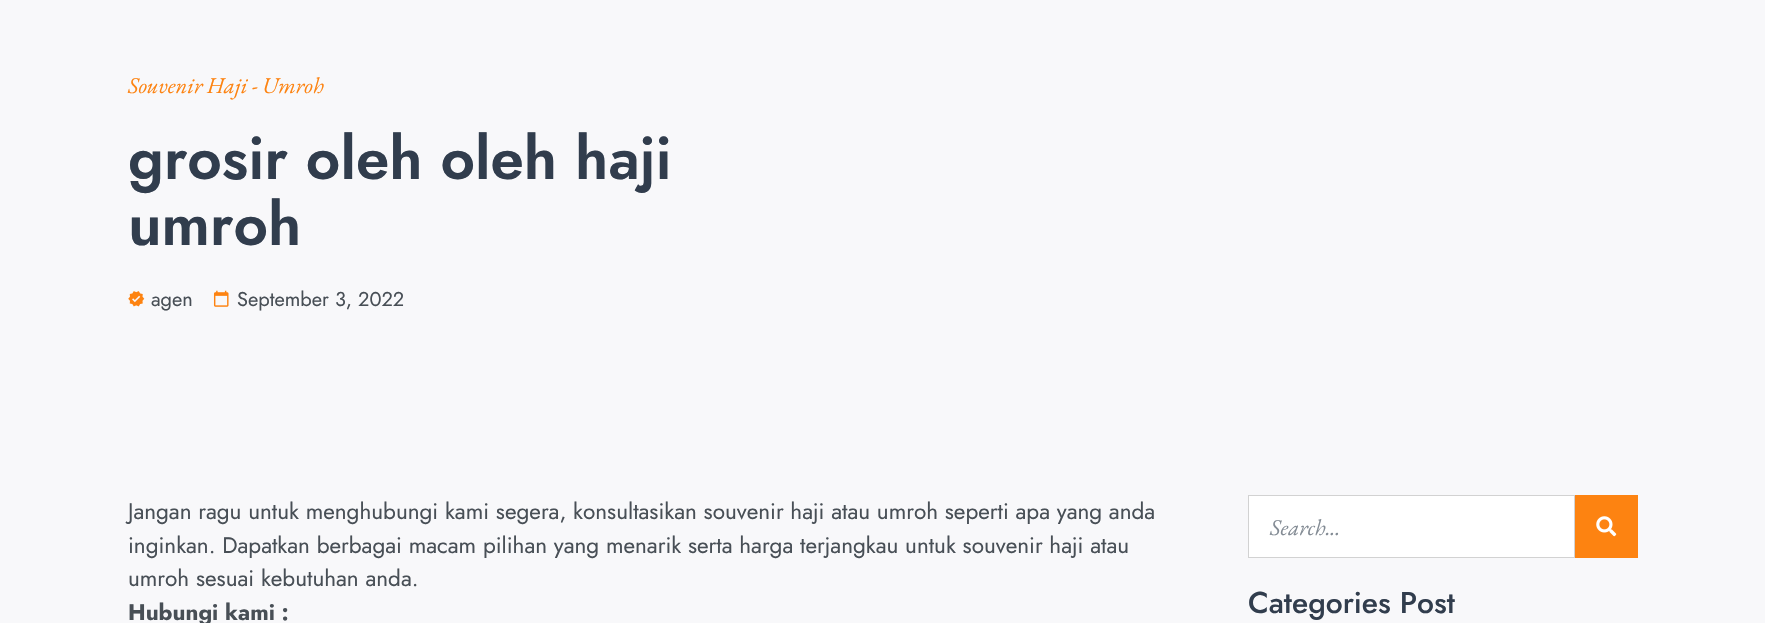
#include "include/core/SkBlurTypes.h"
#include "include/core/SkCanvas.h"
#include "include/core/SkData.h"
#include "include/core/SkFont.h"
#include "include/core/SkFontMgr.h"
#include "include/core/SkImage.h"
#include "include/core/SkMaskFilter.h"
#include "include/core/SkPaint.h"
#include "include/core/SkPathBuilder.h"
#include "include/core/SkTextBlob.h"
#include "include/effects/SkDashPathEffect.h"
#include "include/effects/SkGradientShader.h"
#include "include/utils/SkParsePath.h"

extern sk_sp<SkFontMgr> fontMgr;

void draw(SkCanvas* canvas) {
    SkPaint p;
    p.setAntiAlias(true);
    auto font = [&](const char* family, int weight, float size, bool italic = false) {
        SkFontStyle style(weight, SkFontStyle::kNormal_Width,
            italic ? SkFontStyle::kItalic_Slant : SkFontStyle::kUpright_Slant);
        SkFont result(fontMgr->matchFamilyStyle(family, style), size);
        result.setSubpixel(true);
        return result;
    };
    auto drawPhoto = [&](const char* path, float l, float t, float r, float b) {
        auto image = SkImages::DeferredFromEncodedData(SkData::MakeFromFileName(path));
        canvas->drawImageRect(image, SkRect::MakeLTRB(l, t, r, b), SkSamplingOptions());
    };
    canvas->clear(0xFFF8F8FA);
    auto font1 = font("EB Garamond", 400, 22.5f, true);
    p.setColor(0xFFFD8311);
    canvas->drawString("Souvenir Haji - Umroh", 128, 93, font1, p);
    auto font2 = font("Jost", 600, 60);
    p.setColor(0xFF313D4D);
    canvas->drawString("grosir oleh oleh haji", 128, 179, font2, p);
    canvas->drawString("umroh", 128, 245, font2, p);
    drawPhoto("media/1.png", 128, 291, 145, 307);
    auto font3 = font("Jost", 400, 20);
    p.setColor(0xFF484F56);
    canvas->drawString("agen", 151, 306, font3, p);
    drawPhoto("media/2.png", 213, 290, 229, 307);
    canvas->drawString("September 3, 2022", 237, 306, font3, p);
    auto font4 = font("Jost", 400, 22.5f);
    {
        const struct { const char* s; float x, y; } items[] = {
            {"Jangan ragu untuk menghubungi kami segera, konsultasikan souvenir haji atau umroh seperti apa yang anda", 128, 519},
            {"inginkan. Dapatkan berbagai macam pilihan yang menarik serta harga terjangkau untuk souvenir haji atau", 128, 553},
            {"umroh sesuai kebutuhan anda.", 128, 586},
        };
        for (auto [s, x, y] : items) {
            canvas->drawString(s, x, y, font4, p);
        }
    }
    auto font5 = font("Jost", 700, 22.5f);
    canvas->drawString("Hubungi kami :", 128, 620, font5, p);
    p.setColor(0xFFFFFFFF);
    canvas->drawRect(SkRect::MakeLTRB(1248.5f, 495.5f, 1574.5f, 557.5f), p);
    p.setStyle(SkPaint::kStroke_Style);
    p.setStrokeWidth(1);
    p.setColor(0xFFD2D2D2);
    canvas->drawRect(SkRect::MakeLTRB(1248.5f, 495.5f, 1574.5f, 557.5f), p);
    p.setStyle(SkPaint::kFill_Style);
    p.setColor(0xFF838B94);
    canvas->drawString("Search...", 1270, 535, font1, p);
    p.setColor(0xFFFD8311);
    canvas->drawRect(SkRect::MakeLTRB(1575, 495, 1638, 558), p);
    drawPhoto("media/3.png", 1596, 516, 1617, 537);
    auto font6 = font("Jost", 500, 30);
    p.setColor(0xFF313D4D);
    canvas->drawString("Categories Post", 1248, 613, font6, p);
}
